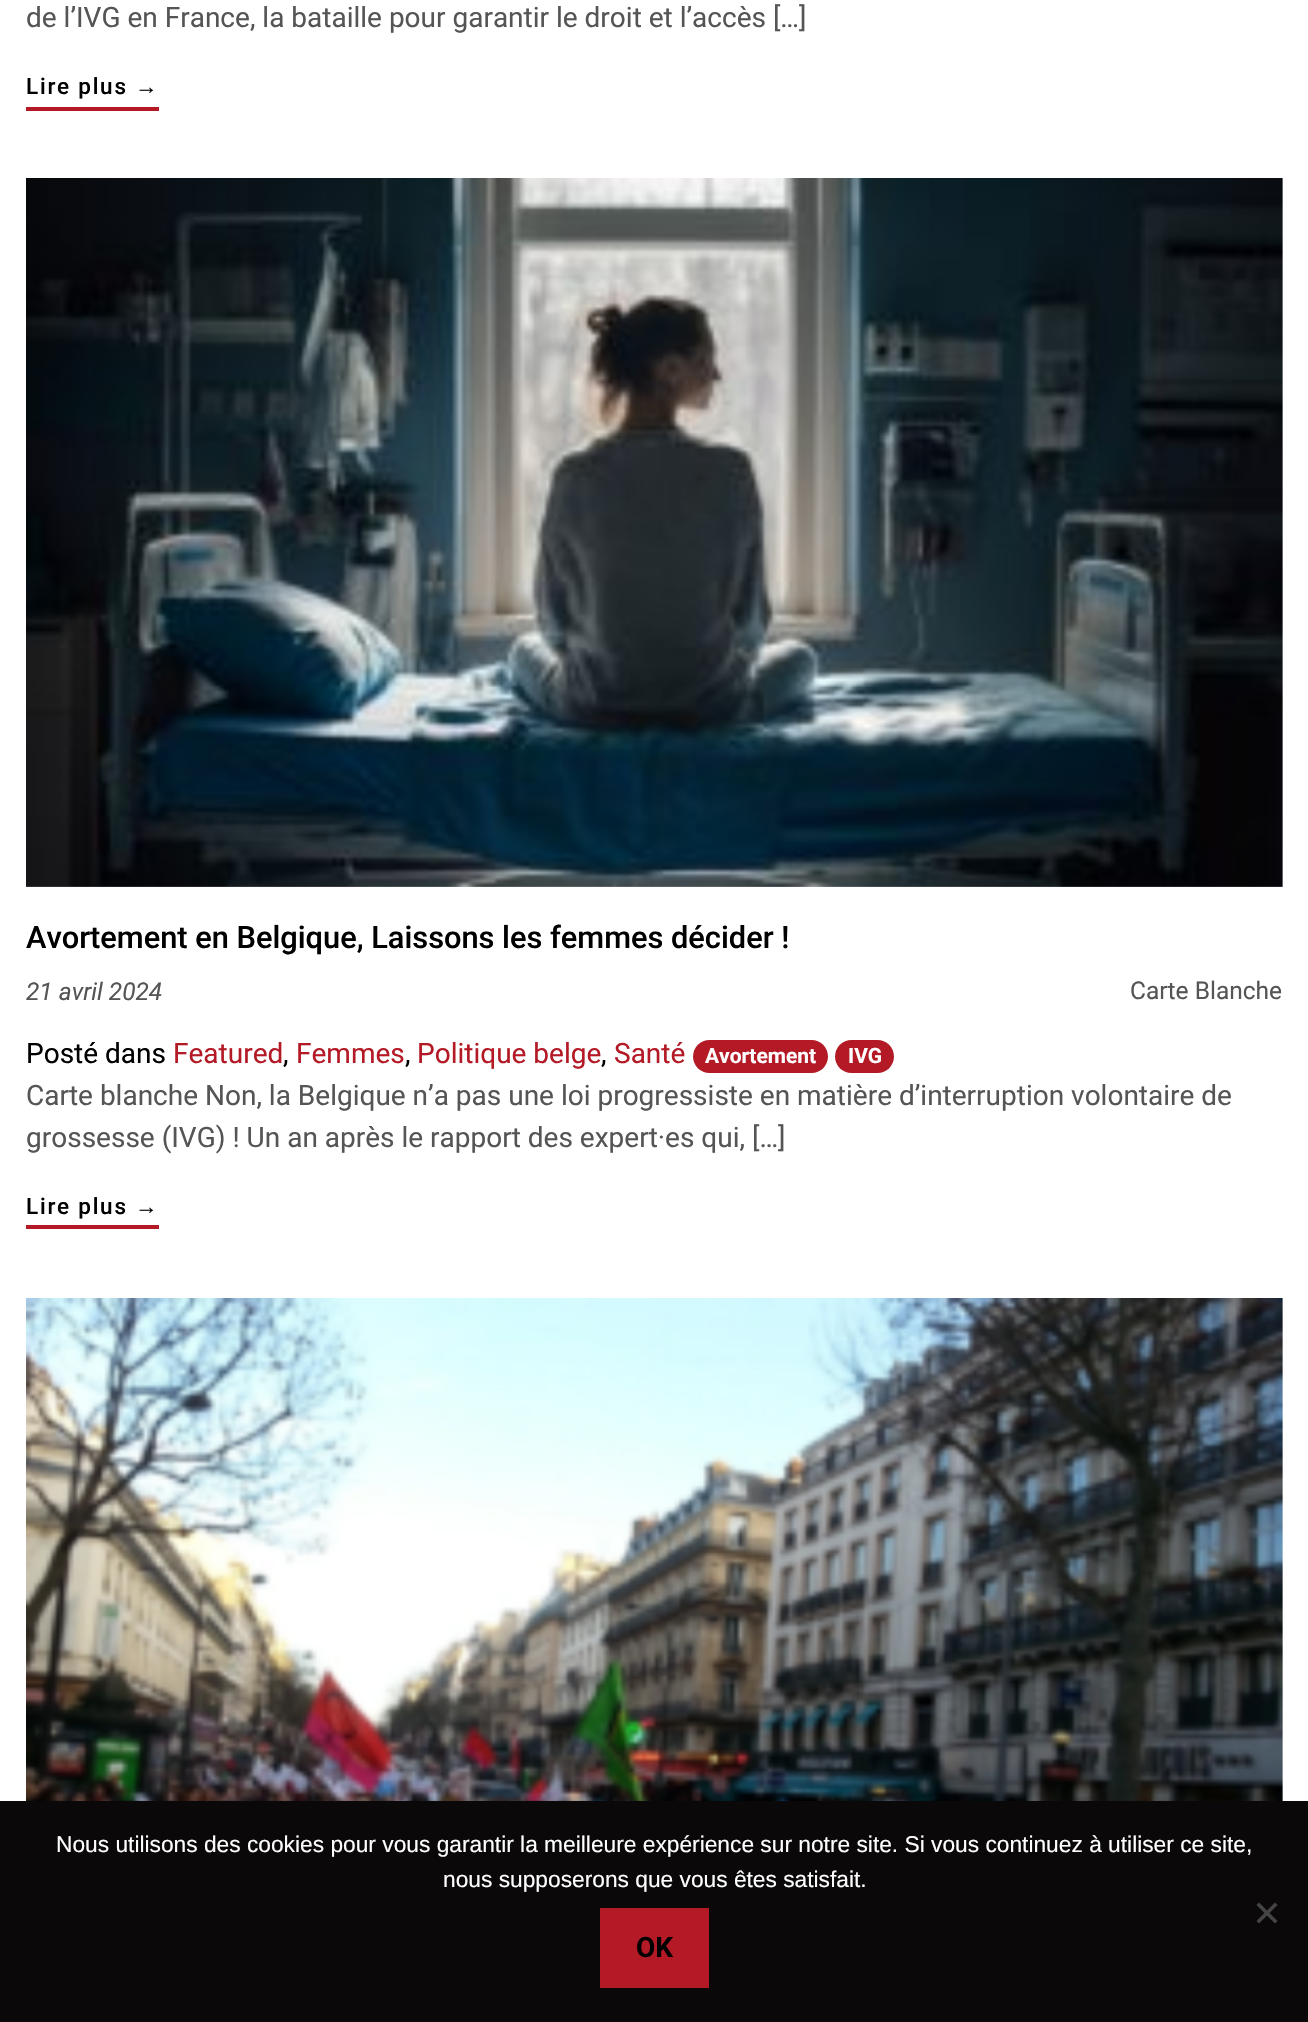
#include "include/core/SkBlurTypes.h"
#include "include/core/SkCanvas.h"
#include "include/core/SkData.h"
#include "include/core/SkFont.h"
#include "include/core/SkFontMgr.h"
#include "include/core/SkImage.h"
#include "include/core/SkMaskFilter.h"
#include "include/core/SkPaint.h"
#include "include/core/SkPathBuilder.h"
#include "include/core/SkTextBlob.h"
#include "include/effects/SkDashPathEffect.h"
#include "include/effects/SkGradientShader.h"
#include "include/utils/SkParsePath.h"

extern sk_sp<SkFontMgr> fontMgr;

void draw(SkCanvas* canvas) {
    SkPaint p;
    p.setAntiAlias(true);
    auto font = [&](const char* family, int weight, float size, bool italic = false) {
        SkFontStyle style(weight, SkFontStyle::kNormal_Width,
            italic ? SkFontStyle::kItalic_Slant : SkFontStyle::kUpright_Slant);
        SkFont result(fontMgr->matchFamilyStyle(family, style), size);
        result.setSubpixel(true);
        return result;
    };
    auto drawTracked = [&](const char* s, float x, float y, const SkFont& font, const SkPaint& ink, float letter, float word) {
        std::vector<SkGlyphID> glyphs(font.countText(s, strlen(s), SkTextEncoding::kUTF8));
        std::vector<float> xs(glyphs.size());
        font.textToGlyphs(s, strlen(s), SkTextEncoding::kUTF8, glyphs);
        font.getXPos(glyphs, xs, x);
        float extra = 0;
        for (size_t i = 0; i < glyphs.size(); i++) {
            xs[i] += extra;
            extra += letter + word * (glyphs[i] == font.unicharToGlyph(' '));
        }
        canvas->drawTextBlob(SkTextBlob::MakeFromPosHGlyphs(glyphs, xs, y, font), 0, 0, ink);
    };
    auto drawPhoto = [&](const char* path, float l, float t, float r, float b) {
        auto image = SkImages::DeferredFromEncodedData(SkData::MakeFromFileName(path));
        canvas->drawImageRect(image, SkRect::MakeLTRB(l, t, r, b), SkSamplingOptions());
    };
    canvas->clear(0xFFFFFFFF);
    auto font1 = font("Roboto", 400, 28);
    p.setColor(0xFF555555);
    canvas->drawString("de l’IVG en France, la bataille pour garantir le droit et l’accès […]", 26, 27, font1, p);
    auto font2 = font("Roboto", 500, 22.5f);
    p.setColor(0xFF000000);
    drawTracked("Lire plus", 26, 94, font2, p, 1.75f, 0);
    auto font3 = font("Liberation Sans", 400, 22.5f);
    drawTracked("→", 135, 94, font3, p, 1.75f, 0);
    p.setColor(0xFFB31A26);
    canvas->drawRect(SkRect::MakeLTRB(26, 107, 159, 111), p);
    drawPhoto("media/1.png", 26, 178, 1283, 887);
    auto font4 = font("Roboto", 500, 30.8f);
    p.setColor(0xFF000000);
    canvas->drawString("Avortement en Belgique, Laissons les femmes décider !", 26, 948, font4, p);
    auto font5 = font("Roboto", 400, 24.5f, true);
    p.setColor(0xFF555555);
    canvas->drawString("21 avril 2024", 26, 1000, font5, p);
    auto font6 = font("Roboto", 400, 24.5f);
    canvas->drawString("Carte Blanche", 1130, 999, font6, p);
    p.setColor(0xFF000000);
    canvas->drawString("Posté dans", 26, 1063, font1, p);
    p.setColor(0xFFB31A26);
    canvas->drawString("Featured", 173, 1063, font1, p);
    p.setColor(0xFF000000);
    canvas->drawString(",", 283, 1063, font1, p);
    p.setColor(0xFFB31A26);
    canvas->drawString("Femmes", 296, 1063, font1, p);
    p.setColor(0xFF000000);
    canvas->drawString(",", 405, 1063, font1, p);
    p.setColor(0xFFB31A26);
    canvas->drawString("Politique belge", 417, 1063, font1, p);
    p.setColor(0xFF000000);
    canvas->drawString(",", 601, 1063, font1, p);
    p.setColor(0xFFB31A26);
    canvas->drawString("Santé", 614, 1063, font1, p);
    canvas->drawRoundRect(SkRect::MakeLTRB(693, 1040, 828, 1073), 16.5f, 16.5f, p);
    auto font7 = font("Roboto", 700, 21);
    p.setColor(0xFFFFFFFF);
    canvas->drawString("Avortement", 705, 1063, font7, p);
    p.setColor(0xFFB31A26);
    canvas->drawRoundRect(SkRect::MakeLTRB(835, 1040, 894, 1073), 16.5f, 16.5f, p);
    p.setColor(0xFFFFFFFF);
    canvas->drawString("IVG", 848, 1063, font7, p);
    p.setColor(0xFF555555);
    canvas->drawString("Carte blanche Non, la Belgique n’a pas une loi progressiste en matière d’interruption volontaire de", 26, 1105, font1, p);
    canvas->drawString("grossesse (IVG) ! Un an après le rapport des expert·es qui, […]", 26, 1147, font1, p);
    p.setColor(0xFF000000);
    drawTracked("Lire plus", 26, 1214, font2, p, 1.75f, 0);
    drawTracked("→", 135, 1214, font3, p, 1.75f, 0);
    p.setColor(0xFFB31A26);
    canvas->drawRect(SkRect::MakeLTRB(26, 1225, 159, 1229), p);
    drawPhoto("media/2.png", 26, 1298, 1283, 1801);
    p.setColor(0xFF0A0808);
    canvas->drawRect(SkRect::MakeLTRB(0, 1801, 1308, 2022), p);
    auto font8 = font("Liberation Sans", 400, 22.75f);
    p.setColor(0xFFFFFFFF);
    canvas->drawString("Nous utilisons des cookies pour vous garantir la meilleure expérience sur notre site. Si vous continuez à utiliser ce site,", 56, 1852, font8, p);
    canvas->drawString("nous supposerons que vous êtes satisfait.", 443, 1887, font8, p);
    p.setColor(0xFF454444);
    canvas->drawPath(SkPathBuilder().moveTo(1275, 1902.5f).lineTo(1277.5f, 1905).lineTo(1259, 1923.5f).lineTo(1256.5f, 1921).close().detach(), p);
    canvas->drawPath(SkPathBuilder().moveTo(1256.5f, 1905).lineTo(1259, 1902.5f).lineTo(1277.5f, 1921).lineTo(1275, 1923.5f).close().detach(), p);
    p.setColor(0xFFB31A26);
    canvas->drawRect(SkRect::MakeLTRB(600, 1908, 709, 1988), p);
    auto font9 = font("Roboto", 700, 28);
    p.setColor(0xFF000000);
    canvas->drawString("OK", 636, 1957, font9, p);
}
